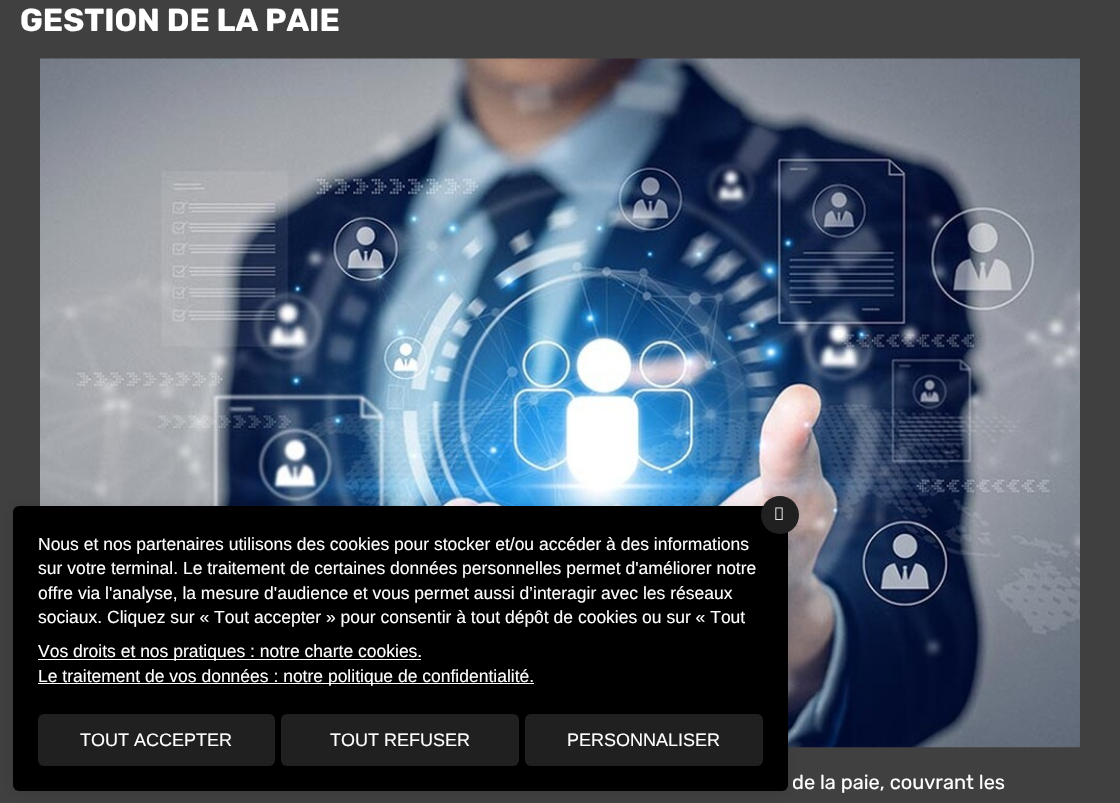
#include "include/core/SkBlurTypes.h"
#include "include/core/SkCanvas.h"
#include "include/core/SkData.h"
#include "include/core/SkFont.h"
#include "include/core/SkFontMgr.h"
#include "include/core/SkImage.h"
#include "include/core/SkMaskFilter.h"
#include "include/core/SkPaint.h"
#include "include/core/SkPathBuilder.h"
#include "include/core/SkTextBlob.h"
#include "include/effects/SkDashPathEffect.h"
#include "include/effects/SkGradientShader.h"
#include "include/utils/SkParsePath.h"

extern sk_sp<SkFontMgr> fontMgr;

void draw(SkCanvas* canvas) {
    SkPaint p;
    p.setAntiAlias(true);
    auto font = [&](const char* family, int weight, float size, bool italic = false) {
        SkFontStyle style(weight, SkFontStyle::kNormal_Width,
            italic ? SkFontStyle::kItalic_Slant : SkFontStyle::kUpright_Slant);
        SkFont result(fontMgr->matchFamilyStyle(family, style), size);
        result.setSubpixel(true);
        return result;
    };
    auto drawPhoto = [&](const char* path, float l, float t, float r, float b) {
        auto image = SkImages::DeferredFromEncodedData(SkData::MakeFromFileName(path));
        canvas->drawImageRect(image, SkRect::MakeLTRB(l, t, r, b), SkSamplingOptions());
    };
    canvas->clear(0xFF404040);
    auto font1 = font("Rubik", 700, 31.75f);
    p.setColor(0xFFFFFFFF);
    canvas->drawString("GESTION DE LA PAIE", 20, 31, font1, p);
    drawPhoto("media/1.png", 40, 58, 1080, 748);
    p.setColor(0x1A000000);
    p.setMaskFilter(SkMaskFilter::MakeBlur(kNormal_SkBlurStyle, 6));
    canvas->drawRoundRect(SkRect::MakeLTRB(13, 506, 788, 791), 6, 6, p);
    p.setMaskFilter(nullptr);
    p.setColor(0xFF000000);
    canvas->drawRoundRect(SkRect::MakeLTRB(13, 506, 788, 791), 6, 6, p);
    p.setColor(0x1A000000);
    p.setMaskFilter(SkMaskFilter::MakeBlur(kNormal_SkBlurStyle, 6));
    canvas->drawRoundRect(SkRect::MakeLTRB(761, 496, 799, 534), 19, 19, p);
    p.setMaskFilter(nullptr);
    p.setColor(0xFF202020);
    canvas->drawCircle(780, 515, 19, p);
    drawPhoto("media/2.png", 775, 507, 783, 520);
    auto font2 = font("Liberation Sans", 400, 17.5f);
    p.setColor(0xFFFFFFFF);
    {
        const struct { const char* s; float x, y; } items[] = {
            {"Nous et nos partenaires utilisons des cookies pour stocker et/ou accéder à des informations", 38, 550},
            {"sur votre terminal. Le traitement de certaines données personnelles permet d'améliorer notre", 38, 574},
            {"offre via l'analyse, la mesure d'audience et vous permet aussi d’interagir avec les réseaux", 38, 599},
            {"sociaux. Cliquez sur « Tout accepter » pour consentir à tout dépôt de cookies ou sur « Tout", 38, 623},
        };
        for (auto [s, x, y] : items) {
            canvas->drawString(s, x, y, font2, p);
        }
    }
    canvas->drawRect(SkRect::MakeLTRB(38, 659, 421, 660), p);
    canvas->drawString("Vos droits et nos pratiques : notre charte cookies.", 38, 657, font2, p);
    canvas->drawRect(SkRect::MakeLTRB(38, 683, 534, 684), p);
    canvas->drawString("Le traitement de vos données : notre politique de confidentialité.", 38, 682, font2, p);
    p.setColor(0xFF202020);
    canvas->drawRoundRect(SkRect::MakeLTRB(38, 714, 275, 766), 6, 6, p);
    auto font3 = font("Liberation Sans", 400, 18);
    p.setColor(0xFFFFFFFF);
    canvas->drawString("TOUT ACCEPTER", 80, 746, font3, p);
    p.setColor(0xFF202020);
    canvas->drawRoundRect(SkRect::MakeLTRB(281, 714, 519, 766), 6, 6, p);
    p.setColor(0xFFFFFFFF);
    canvas->drawString("TOUT REFUSER", 330, 746, font3, p);
    p.setColor(0xFF202020);
    canvas->drawRoundRect(SkRect::MakeLTRB(525, 714, 763, 766), 6, 6, p);
    p.setColor(0xFFFFFFFF);
    canvas->drawString("PERSONNALISER", 567, 746, font3, p);
    auto font4 = font("Rubik", 400, 20);
    canvas->drawString("de la paie, couvrant les", 792, 789, font4, p);
}
